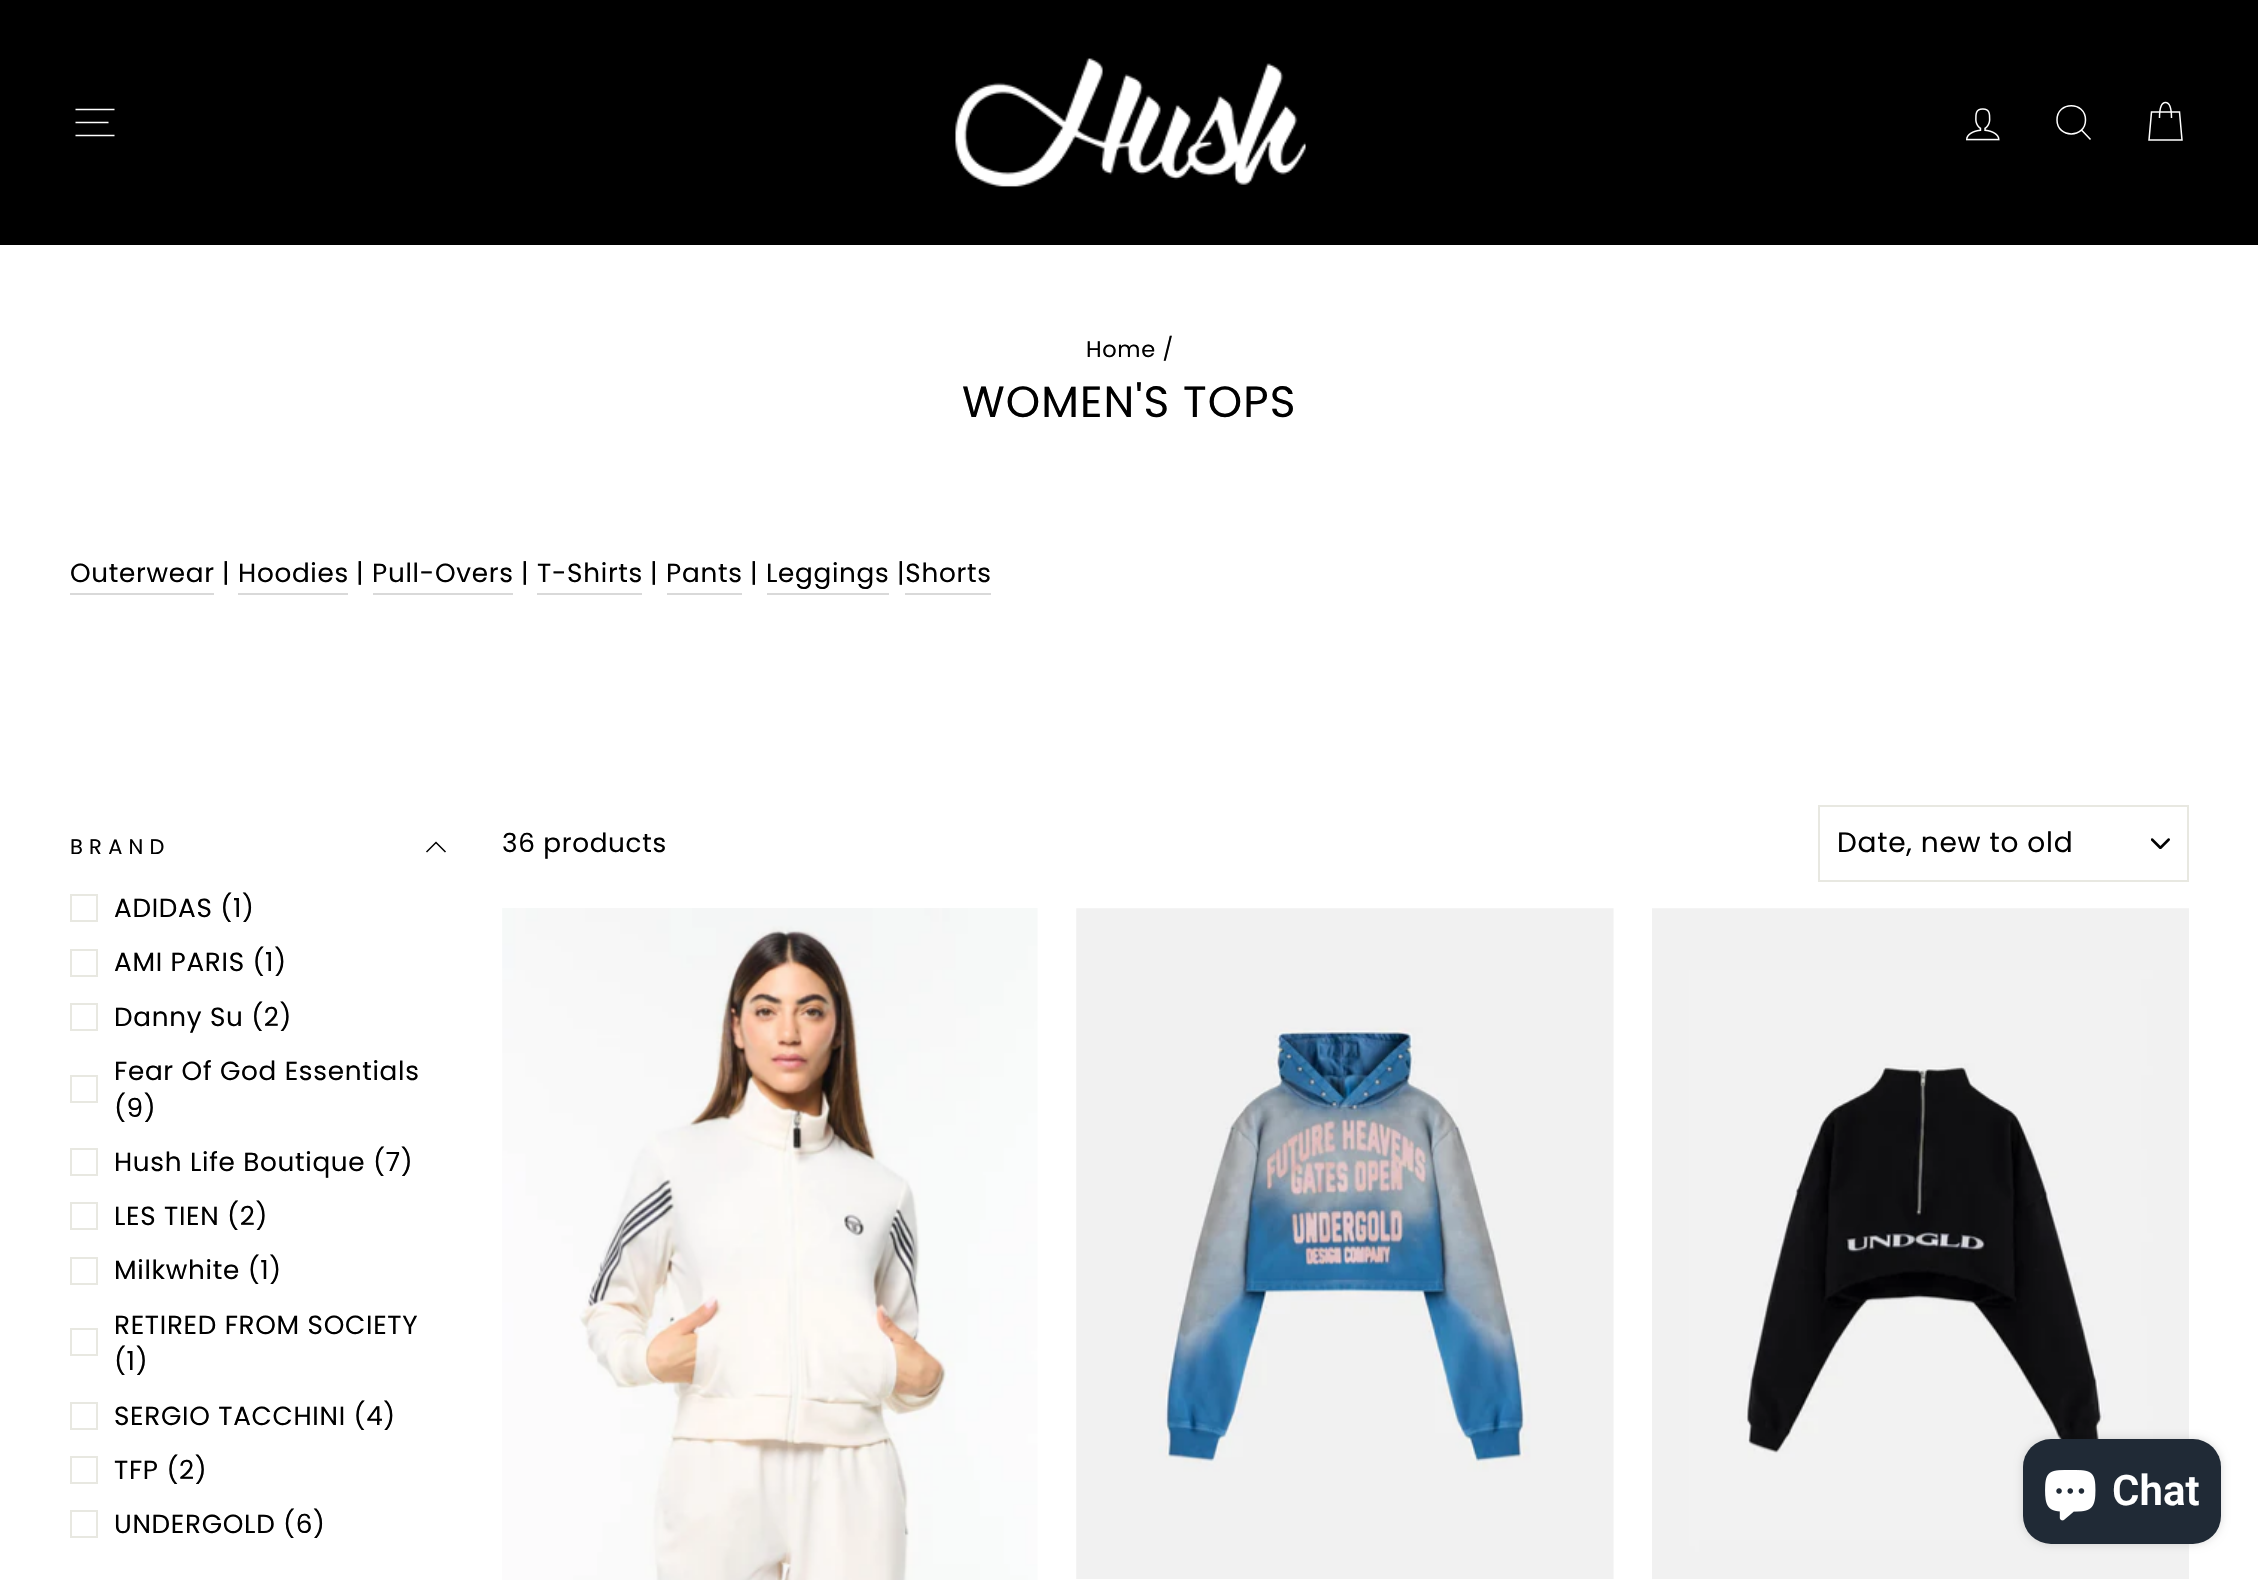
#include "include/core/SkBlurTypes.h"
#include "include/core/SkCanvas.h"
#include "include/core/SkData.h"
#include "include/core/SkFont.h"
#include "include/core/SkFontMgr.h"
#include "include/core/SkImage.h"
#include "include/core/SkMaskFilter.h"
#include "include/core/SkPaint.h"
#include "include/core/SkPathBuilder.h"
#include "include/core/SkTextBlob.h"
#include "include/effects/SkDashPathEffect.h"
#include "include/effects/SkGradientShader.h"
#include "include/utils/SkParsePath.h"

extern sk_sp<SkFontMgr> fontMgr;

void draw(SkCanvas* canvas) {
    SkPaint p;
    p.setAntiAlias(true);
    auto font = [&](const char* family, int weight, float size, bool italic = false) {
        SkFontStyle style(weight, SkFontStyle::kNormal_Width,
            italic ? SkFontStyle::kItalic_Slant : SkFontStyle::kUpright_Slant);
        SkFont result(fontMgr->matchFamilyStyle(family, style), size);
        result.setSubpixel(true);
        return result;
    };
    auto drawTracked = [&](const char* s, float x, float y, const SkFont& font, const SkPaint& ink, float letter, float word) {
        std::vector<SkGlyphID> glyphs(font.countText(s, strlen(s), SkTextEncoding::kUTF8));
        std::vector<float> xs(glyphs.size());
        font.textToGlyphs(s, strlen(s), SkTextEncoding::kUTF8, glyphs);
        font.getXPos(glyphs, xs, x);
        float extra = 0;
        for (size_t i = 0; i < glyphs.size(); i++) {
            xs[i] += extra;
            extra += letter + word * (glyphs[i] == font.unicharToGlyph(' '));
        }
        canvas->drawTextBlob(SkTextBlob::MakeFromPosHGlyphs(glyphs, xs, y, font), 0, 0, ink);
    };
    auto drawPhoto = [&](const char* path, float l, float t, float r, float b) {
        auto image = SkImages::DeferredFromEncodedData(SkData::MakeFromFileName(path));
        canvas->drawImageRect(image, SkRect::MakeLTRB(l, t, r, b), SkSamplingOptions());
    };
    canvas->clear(0xFFFFFFFF);
    p.setColor(0xFF000000);
    canvas->drawRect(SkRect::MakeLTRB(0, 0, 2258, 245), p);
    p.setStyle(SkPaint::kStroke_Style);
    p.setStrokeWidth(1.5f);
    p.setColor(0xFFFFFFFF);
    canvas->drawPath(SkPathBuilder().moveTo(75.5f, 109.5f).lineTo(114.5f, 109.5f).moveTo(75.5f, 122.5f).lineTo(108.5f, 122.5f).moveTo(75.5f, 135.5f).lineTo(114.5f, 135.5f).detach(), p);
    drawPhoto("media/1.png", 955, 58, 1306, 187);
    drawPhoto("media/2.png", 1966, 108, 2000, 141);
    canvas->drawPath(SkPathBuilder().moveTo(2085.5f, 120).cubicTo(2085.5f, 138.5f, 2057, 138.5f, 2057, 120).cubicTo(2057, 101, 2085.5f, 101, 2085.5f, 120).close().moveTo(2090.5f, 139.5f).lineTo(2081.5f, 130).detach(), p);
    canvas->drawPath(SkPathBuilder().moveTo(2159.5f, 118).cubicTo(2159.5f, 106, 2162, 102.5f, 2165.5f, 102.5f).cubicTo(2169, 102.5f, 2171.5f, 106, 2171.5f, 118).moveTo(2151.5f, 112).lineTo(2179.5f, 112).lineTo(2182, 140).lineTo(2149, 140).close().detach(), p);
    auto font1 = font("Poppins", 400, 22.5f);
    p.setStyle(SkPaint::kFill_Style);
    p.setColor(0xFF000000);
    drawTracked("Home /", 1086, 357, font1, p, 0.7f, 0);
    auto font2 = font("Poppins", 400, 43.75f);
    drawTracked("WOMEN'S TOPS", 962, 417, font2, p, 1.1f, 0);
    p.setColor(0xFFD9D9D9);
    canvas->drawRect(SkRect::MakeLTRB(70, 593, 214, 595), p);
    auto font3 = font("Poppins", 400, 26.25f);
    p.setColor(0xFF000000);
    {
        const struct { const char* s; float x, y; } items[] = {
            {"Outerwear", 70, 582},
            {"| Hoodies", 222, 582},
            {"| Pull-Overs", 356, 582},
            {"| T-Shirts", 521, 582},
            {"| Pants", 650, 582},
            {"| Leggings", 750, 582},
            {"|Shorts", 897, 582},
        };
        for (auto [s, x, y] : items) {
            drawTracked(s, x, y, font3, p, 0.7f, 0);
        }
    }
    {
        const struct { float l, t, r, b; SkColor color; } items[] = {
            {238, 593, 348, 595, 0xFFD9D9D9},
            {373, 593, 513, 595, 0xFFD9D9D9},
            {537, 593, 642, 595, 0xFFD9D9D9},
            {667, 593, 742, 595, 0xFFD9D9D9},
            {767, 593, 889, 595, 0xFFD9D9D9},
            {905, 593, 991, 595, 0xFFD9D9D9},
        };
        for (auto [l, t, r, b, color] : items) {
            p.setColor(color);
            canvas->drawRect(SkRect::MakeLTRB(l, t, r, b), p);
        }
    }
    auto font4 = font("Poppins", 400, 21);
    p.setColor(0xFF000000);
    drawTracked("BRAND", 70, 854, font4, p, 6.25f, 0);
    p.setStyle(SkPaint::kStroke_Style);
    canvas->drawPath(SkPathBuilder().moveTo(426.5f, 852).lineTo(436, 842.5f).lineTo(445.5f, 852).detach(), p);
    p.setStrokeWidth(2);
    p.setColor(0xFFE8E8E1);
    canvas->drawRect(SkRect::MakeLTRB(71, 895, 97, 921), p);
    p.setStyle(SkPaint::kFill_Style);
    p.setColor(0xFF000000);
    drawTracked("ADIDAS (1)", 114, 917, font3, p, 0.7f, 0);
    p.setStyle(SkPaint::kStroke_Style);
    p.setColor(0xFFE8E8E1);
    canvas->drawRect(SkRect::MakeLTRB(71, 950, 97, 976), p);
    p.setStyle(SkPaint::kFill_Style);
    p.setColor(0xFF000000);
    drawTracked("AMI PARIS (1)", 114, 971, font3, p, 0.7f, 0);
    p.setStyle(SkPaint::kStroke_Style);
    p.setColor(0xFFE8E8E1);
    canvas->drawRect(SkRect::MakeLTRB(71, 1004, 97, 1030), p);
    p.setStyle(SkPaint::kFill_Style);
    p.setColor(0xFF000000);
    drawTracked("Danny Su (2)", 114, 1026, font3, p, 0.7f, 0);
    p.setStyle(SkPaint::kStroke_Style);
    p.setColor(0xFFE8E8E1);
    canvas->drawRect(SkRect::MakeLTRB(71, 1076, 97, 1102), p);
    p.setStyle(SkPaint::kFill_Style);
    p.setColor(0xFF000000);
    drawTracked("Fear Of God Essentials", 114, 1080, font3, p, 0.7f, 0);
    drawTracked("(9)", 114, 1117, font3, p, 0.7f, 0);
    p.setStyle(SkPaint::kStroke_Style);
    p.setColor(0xFFE8E8E1);
    canvas->drawRect(SkRect::MakeLTRB(71, 1149, 97, 1175), p);
    p.setStyle(SkPaint::kFill_Style);
    p.setColor(0xFF000000);
    drawTracked("Hush Life Boutique (7)", 114, 1171, font3, p, 0.7f, 0);
    p.setStyle(SkPaint::kStroke_Style);
    p.setColor(0xFFE8E8E1);
    canvas->drawRect(SkRect::MakeLTRB(71, 1203, 97, 1229), p);
    p.setStyle(SkPaint::kFill_Style);
    p.setColor(0xFF000000);
    drawTracked("LES TIEN (2)", 114, 1225, font3, p, 0.7f, 0);
    p.setStyle(SkPaint::kStroke_Style);
    p.setColor(0xFFE8E8E1);
    canvas->drawRect(SkRect::MakeLTRB(71, 1258, 97, 1284), p);
    p.setStyle(SkPaint::kFill_Style);
    p.setColor(0xFF000000);
    drawTracked("Milkwhite (1)", 114, 1279, font3, p, 0.7f, 0);
    p.setStyle(SkPaint::kStroke_Style);
    p.setColor(0xFFE8E8E1);
    canvas->drawRect(SkRect::MakeLTRB(71, 1329, 97, 1355), p);
    p.setStyle(SkPaint::kFill_Style);
    p.setColor(0xFF000000);
    drawTracked("RETIRED FROM SOCIETY", 114, 1334, font3, p, 0.7f, 0);
    drawTracked("(1)", 114, 1370, font3, p, 0.7f, 0);
    p.setStyle(SkPaint::kStroke_Style);
    p.setColor(0xFFE8E8E1);
    canvas->drawRect(SkRect::MakeLTRB(71, 1403, 97, 1429), p);
    p.setStyle(SkPaint::kFill_Style);
    p.setColor(0xFF000000);
    drawTracked("SERGIO TACCHINI (4)", 114, 1425, font3, p, 0.7f, 0);
    p.setStyle(SkPaint::kStroke_Style);
    p.setColor(0xFFE8E8E1);
    canvas->drawRect(SkRect::MakeLTRB(71, 1457, 97, 1483), p);
    p.setStyle(SkPaint::kFill_Style);
    p.setColor(0xFF000000);
    drawTracked("TFP (2)", 114, 1479, font3, p, 0.7f, 0);
    p.setStyle(SkPaint::kStroke_Style);
    p.setColor(0xFFE8E8E1);
    canvas->drawRect(SkRect::MakeLTRB(71, 1511, 97, 1537), p);
    p.setStyle(SkPaint::kFill_Style);
    p.setColor(0xFF000000);
    drawTracked("UNDERGOLD (6)", 114, 1533, font3, p, 0.7f, 0);
    drawTracked("36 products", 502, 852, font3, p, 0.7f, 0);
    drawPhoto("media/3.png", 2151, 838, 2170, 849);
    p.setStyle(SkPaint::kStroke_Style);
    p.setColor(0xFFE8E8E1);
    canvas->drawRect(SkRect::MakeLTRB(1819, 806, 2188, 881), p);
    auto font5 = font("Poppins", 400, 28);
    p.setStyle(SkPaint::kFill_Style);
    p.setColor(0xFF000000);
    drawTracked("Date, new to old", 1837, 852, font5, p, 0.75f, 0);
    drawPhoto("media/4.png", 502, 908, 1038, 1580);
    drawPhoto("media/5.png", 1076, 908, 1614, 1579);
    drawPhoto("media/6.png", 1652, 908, 2189, 1579);
    p.setColor(0x26000000);
    p.setMaskFilter(SkMaskFilter::MakeBlur(kNormal_SkBlurStyle, 4.5f));
    canvas->drawRoundRect(SkRect::MakeLTRB(2023, 1439, 2221, 1544), 28, 28, p);
    p.setMaskFilter(nullptr);
    p.setColor(0xFF202A36);
    canvas->drawRoundRect(SkRect::MakeLTRB(2023, 1439, 2221, 1544), 28, 28, p);
    drawPhoto("media/7.png", 2045, 1470, 2096, 1521);
    auto font6 = font("Roboto", 600, 42);
    p.setColor(0xFFFFFFFF);
    canvas->drawString("Chat", 2112, 1505, font6, p);
}
